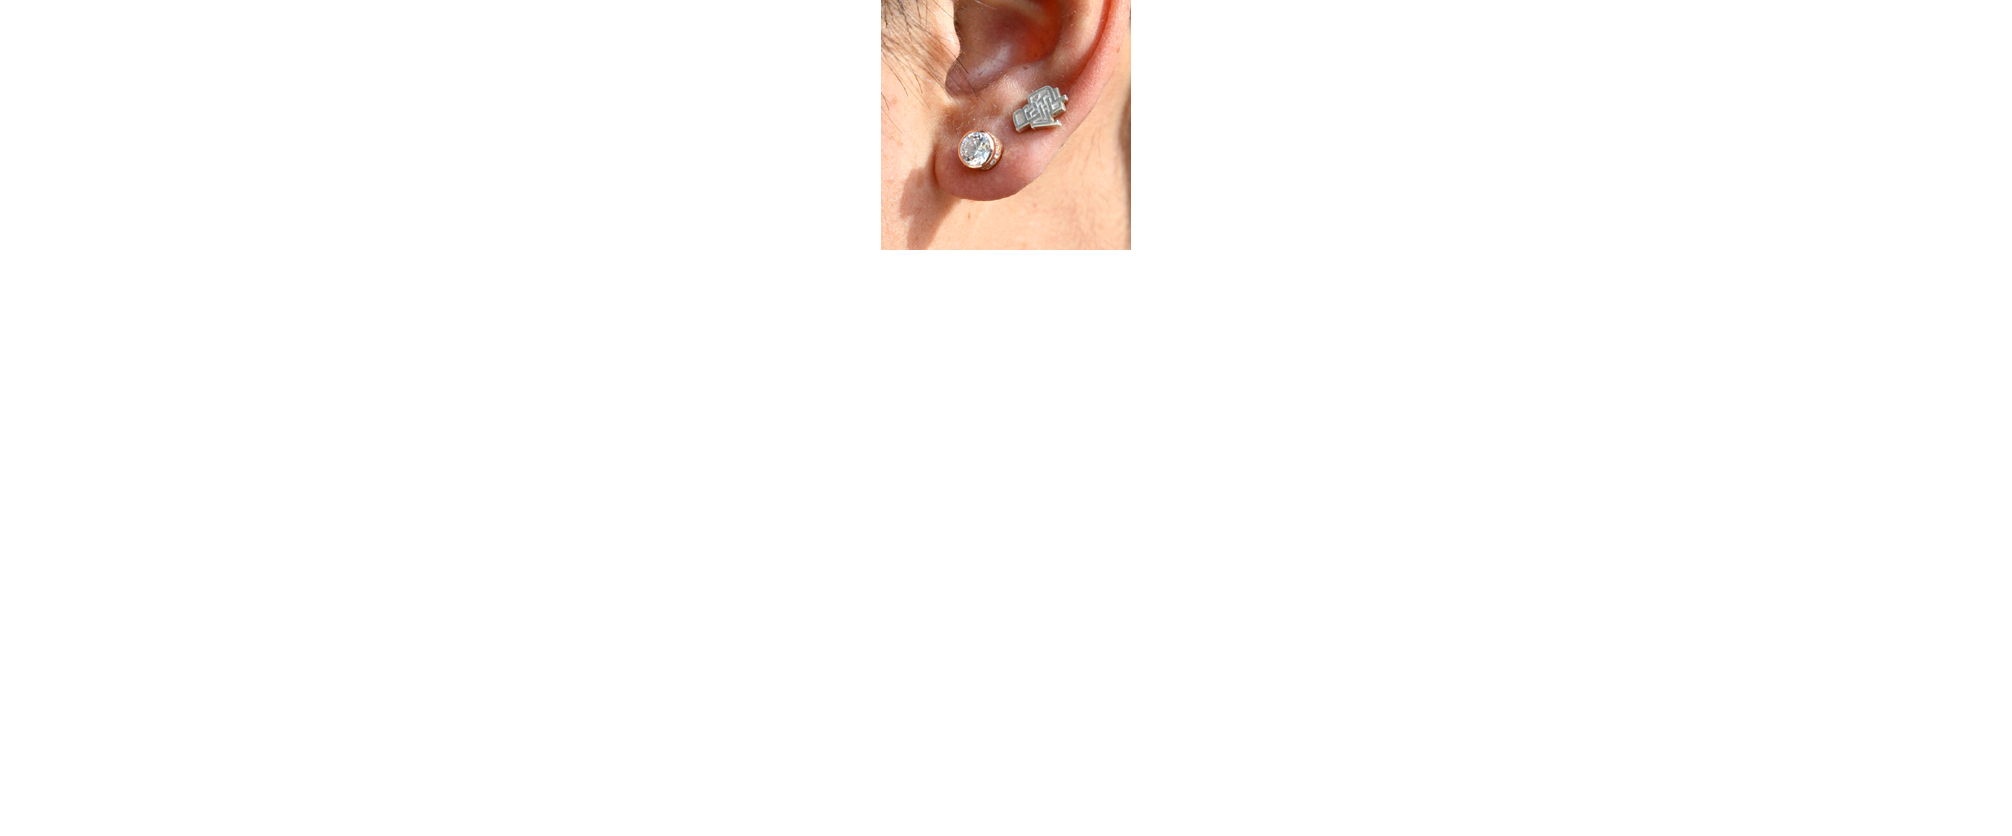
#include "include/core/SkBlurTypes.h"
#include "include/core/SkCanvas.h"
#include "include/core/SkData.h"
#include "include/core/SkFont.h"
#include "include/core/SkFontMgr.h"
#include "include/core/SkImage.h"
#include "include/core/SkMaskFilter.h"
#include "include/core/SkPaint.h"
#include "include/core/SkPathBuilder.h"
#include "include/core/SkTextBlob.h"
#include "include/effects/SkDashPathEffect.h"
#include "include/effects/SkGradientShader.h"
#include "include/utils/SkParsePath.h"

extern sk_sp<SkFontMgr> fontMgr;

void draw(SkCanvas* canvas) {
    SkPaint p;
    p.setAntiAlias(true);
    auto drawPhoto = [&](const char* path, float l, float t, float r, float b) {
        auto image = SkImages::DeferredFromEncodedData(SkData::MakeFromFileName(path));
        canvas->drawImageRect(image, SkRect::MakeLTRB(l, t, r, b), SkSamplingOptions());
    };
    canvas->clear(0xFFFFFFFF);
    drawPhoto("media/1.png", 881, 0, 1131, 250);
}
